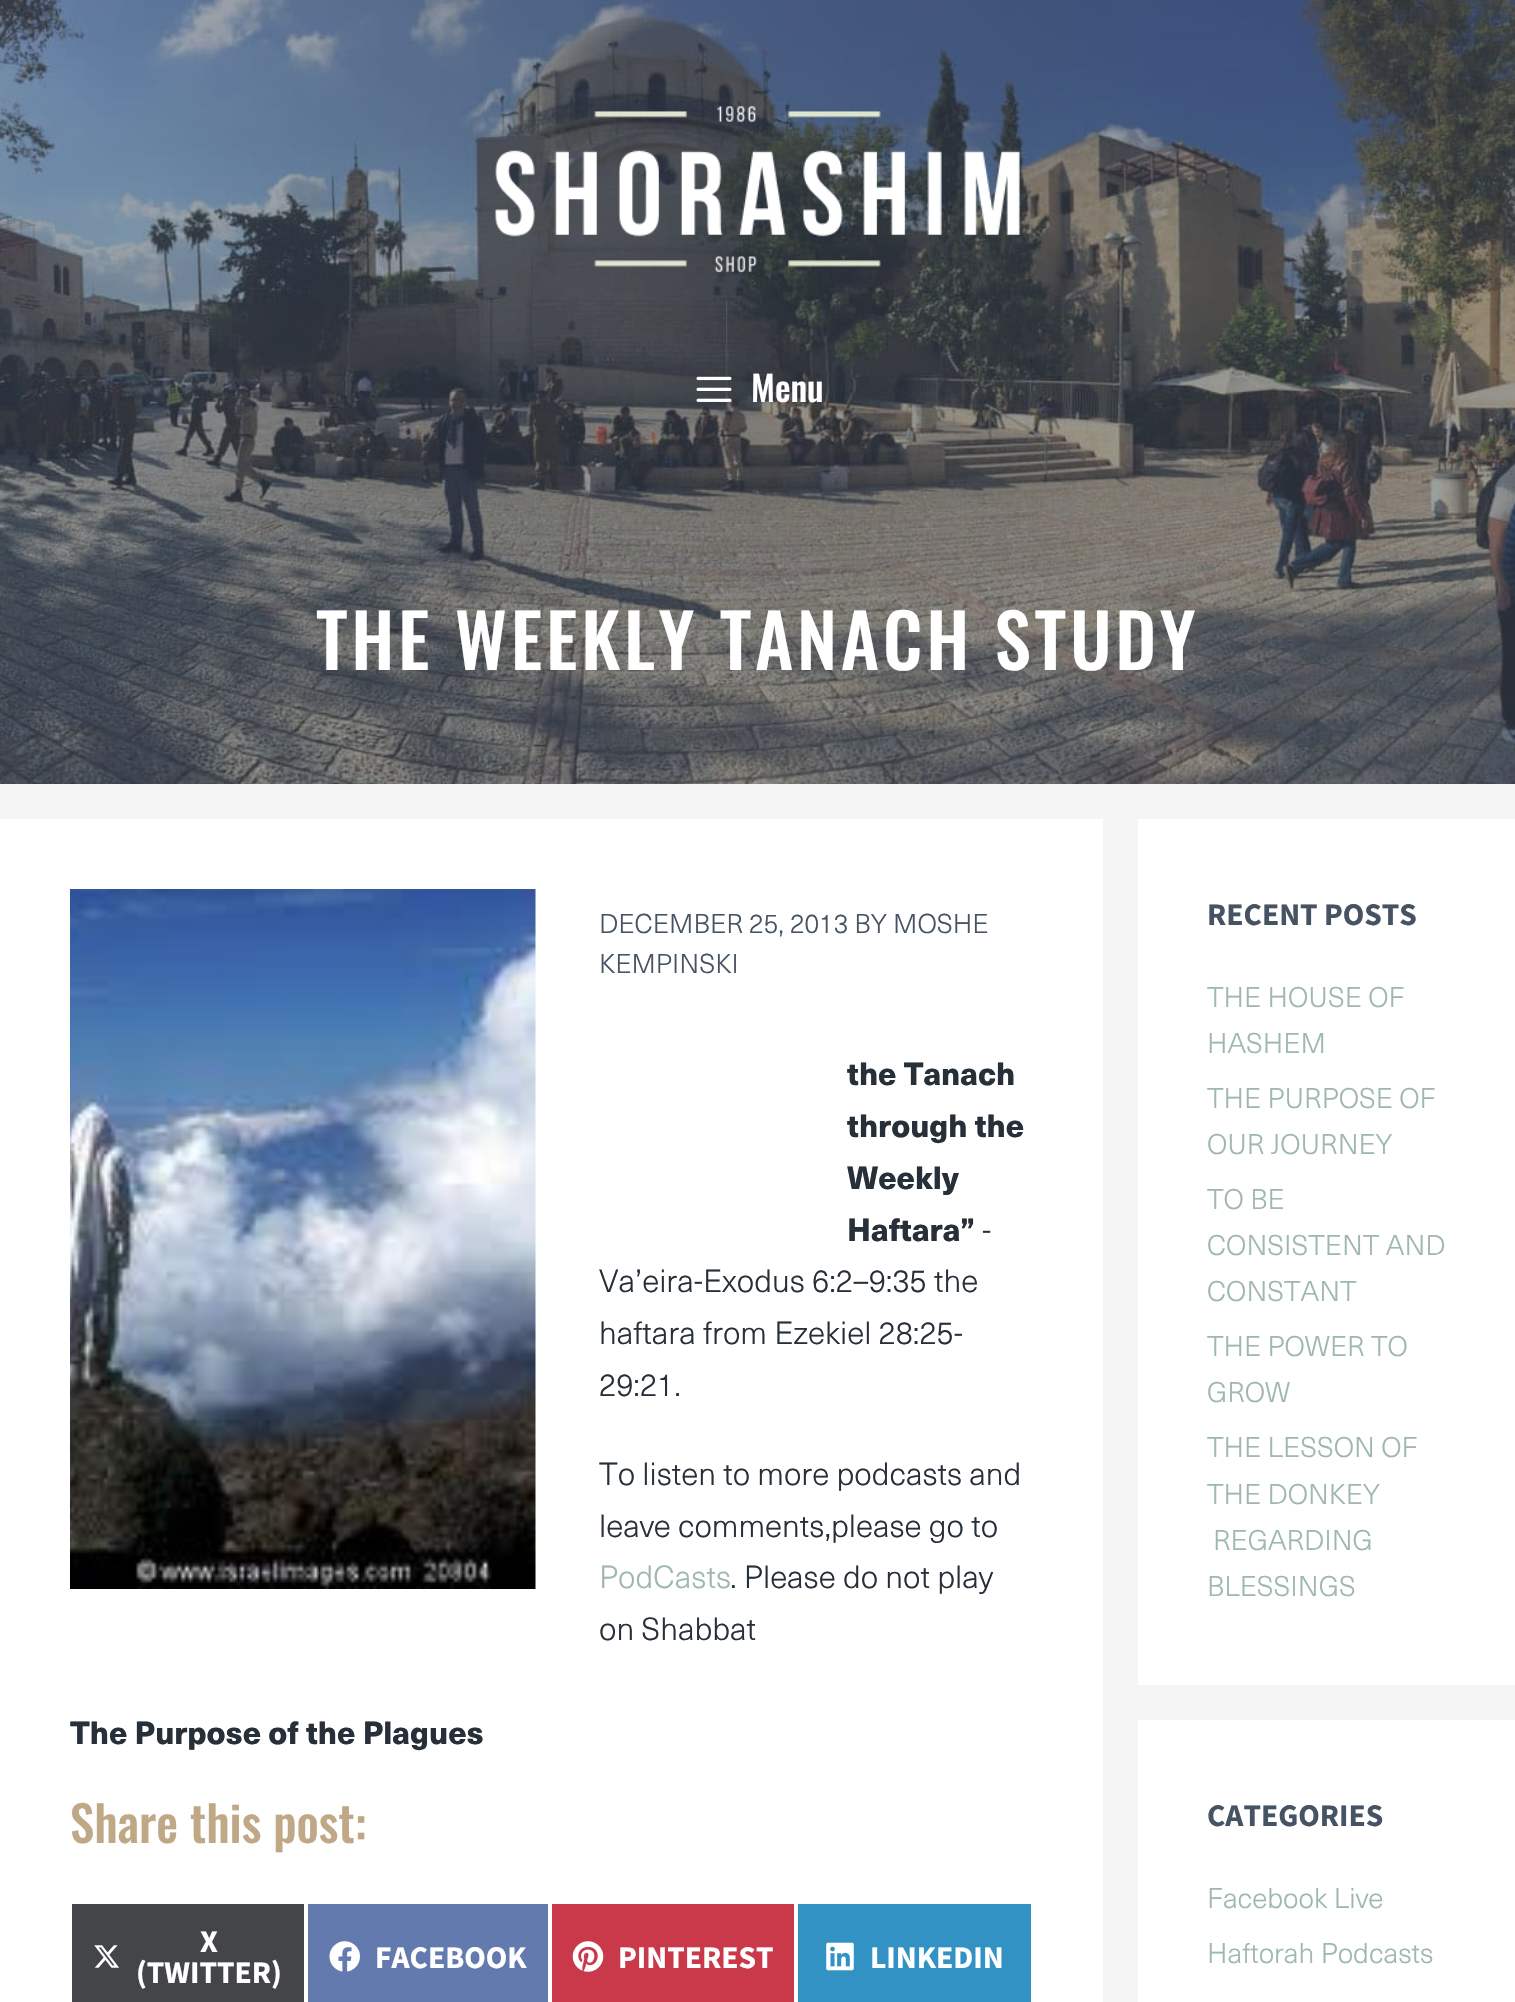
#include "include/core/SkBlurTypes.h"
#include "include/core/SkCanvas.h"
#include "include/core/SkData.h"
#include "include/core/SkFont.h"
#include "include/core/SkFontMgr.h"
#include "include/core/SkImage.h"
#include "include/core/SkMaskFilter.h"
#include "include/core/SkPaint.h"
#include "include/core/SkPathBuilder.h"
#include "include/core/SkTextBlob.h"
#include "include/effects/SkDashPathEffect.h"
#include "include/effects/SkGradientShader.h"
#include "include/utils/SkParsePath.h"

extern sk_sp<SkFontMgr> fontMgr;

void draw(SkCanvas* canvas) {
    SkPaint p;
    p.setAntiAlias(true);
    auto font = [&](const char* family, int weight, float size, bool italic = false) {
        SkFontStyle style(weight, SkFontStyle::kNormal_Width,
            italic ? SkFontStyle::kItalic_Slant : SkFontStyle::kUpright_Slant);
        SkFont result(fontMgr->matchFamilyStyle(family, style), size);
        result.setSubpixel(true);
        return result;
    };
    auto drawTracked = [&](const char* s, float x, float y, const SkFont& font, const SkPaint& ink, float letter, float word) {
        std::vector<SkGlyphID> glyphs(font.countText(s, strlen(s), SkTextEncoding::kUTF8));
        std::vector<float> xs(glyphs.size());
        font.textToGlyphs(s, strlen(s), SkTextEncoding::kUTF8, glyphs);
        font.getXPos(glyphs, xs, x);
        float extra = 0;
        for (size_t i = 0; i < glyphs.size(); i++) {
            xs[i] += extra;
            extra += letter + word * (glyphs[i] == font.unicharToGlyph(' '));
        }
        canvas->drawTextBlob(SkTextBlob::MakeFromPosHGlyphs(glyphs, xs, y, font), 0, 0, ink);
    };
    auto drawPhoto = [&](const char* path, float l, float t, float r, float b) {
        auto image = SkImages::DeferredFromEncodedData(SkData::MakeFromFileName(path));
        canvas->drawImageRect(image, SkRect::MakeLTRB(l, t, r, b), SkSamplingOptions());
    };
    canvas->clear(0xFFF5F5F5);
    drawPhoto("media/3.png", 0, 0, 1515, 784);
    drawPhoto("media/1.png", 495, 105, 1020, 273);
    drawPhoto("media/2.png", 696, 376, 732, 402);
    auto font1 = font("Oswald", 500, 35);
    p.setColor(0xFFFFFFFF);
    canvas->drawString("Menu", 751, 402, font1, p);
    auto font2 = font("Oswald", 500, 73.5f);
    drawTracked("THE WEEKLY TANACH STUDY", 316, 670, font2, p, 3.7f, 0);
    canvas->drawRect(SkRect::MakeLTRB(0, 819, 1103, 2002), p);
    drawPhoto("media/4.png", 70, 889, 536, 1589);
    auto font3 = font("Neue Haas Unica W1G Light", 300, 26.75f);
    p.setColor(0xFF465362);
    canvas->drawString("DECEMBER 25, 2013 BY MOSHE", 599, 933, font3, p);
    canvas->drawString("KEMPINSKI", 599, 973, font3, p);
    auto font4 = font("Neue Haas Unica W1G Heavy", 900, 31.5f);
    p.setColor(0xFF272F38);
    {
        const struct { const char* s; float x, y; } items[] = {
            {"the Tanach", 847, 1085},
            {"through the", 847, 1137},
            {"Weekly", 847, 1189},
            {"Haftara”", 847, 1241},
        };
        for (auto [s, x, y] : items) {
            canvas->drawString(s, x, y, font4, p);
        }
    }
    auto font5 = font("Neue Haas Unica W1G Light", 300, 31.5f);
    {
        const struct { const char* s; float x, y; } items[] = {
            {"-", 982, 1241},
            {"Va’eira-Exodus 6:2–9:35 the", 599, 1292},
            {"haftara from Ezekiel 28:25-", 599, 1344},
            {"29:21.", 599, 1396},
            {"To listen to more podcasts and", 599, 1485},
            {"leave comments,please go to", 599, 1537},
        };
        for (auto [s, x, y] : items) {
            canvas->drawString(s, x, y, font5, p);
        }
    }
    p.setColor(0xFF9FB8AD);
    canvas->drawString("PodCasts", 599, 1588, font5, p);
    p.setColor(0xFF272F38);
    canvas->drawString(". Please do not play", 730, 1588, font5, p);
    canvas->drawString("on Shabbat", 599, 1640, font5, p);
    canvas->drawString("The Purpose of the Plagues", 70, 1744, font4, p);
    auto font6 = font("Oswald", 500, 49);
    p.setColor(0xFFC0A887);
    canvas->drawString("Share this post:", 70, 1843, font6, p);
    p.setColor(0xFF434548);
    canvas->drawRect(SkRect::MakeLTRB(72, 1904, 304, 2002), p);
    drawPhoto("media/5.png", 94, 1945, 119, 1968);
    auto font7 = font("Source Sans Pro", 700, 31.5f);
    p.setColor(0xFFFFFFFF);
    canvas->drawString("X", 200, 1952, font7, p);
    canvas->drawString("(TWITTER)", 136, 1983, font7, p);
    p.setColor(0xFF627AAD);
    canvas->drawRect(SkRect::MakeLTRB(308, 1904, 548, 2002), p);
    drawPhoto("media/6.png", 329, 1941, 360, 1972);
    p.setColor(0xFFFFFFFF);
    canvas->drawString("FACEBOOK", 375, 1968, font7, p);
    p.setColor(0xFFCA3949);
    canvas->drawRect(SkRect::MakeLTRB(552, 1904, 794, 2002), p);
    drawPhoto("media/7.png", 572, 1941, 604, 1972);
    p.setColor(0xFFFFFFFF);
    canvas->drawString("PINTEREST", 618, 1968, font7, p);
    p.setColor(0xFF3392C4);
    canvas->drawRect(SkRect::MakeLTRB(798, 1904, 1031, 2002), p);
    drawPhoto("media/8.png", 826, 1942, 854, 1971);
    p.setColor(0xFFFFFFFF);
    canvas->drawString("LINKEDIN", 870, 1968, font7, p);
    canvas->drawRect(SkRect::MakeLTRB(1138, 819, 1515, 1685), p);
    p.setColor(0xFF465362);
    canvas->drawString("RECENT POSTS", 1207, 925, font7, p);
    auto font8 = font("Neue Haas Unica W1G Light", 300, 28);
    p.setColor(0xFF9FB8AD);
    {
        const struct { const char* s; float x, y; } items[] = {
            {"THE HOUSE OF", 1207, 1007},
            {"HASHEM", 1207, 1053},
            {"THE PURPOSE OF", 1207, 1108},
            {"OUR JOURNEY", 1207, 1154},
            {"TO BE", 1207, 1209},
            {"CONSISTENT AND", 1207, 1255},
            {"CONSTANT", 1207, 1301},
            {"THE POWER TO", 1207, 1356},
            {"GROW", 1207, 1402},
            {"THE LESSON OF", 1207, 1457},
            {"THE DONKEY", 1207, 1504},
            {"REGARDING", 1213, 1550},
            {"BLESSINGS", 1207, 1596},
        };
        for (auto [s, x, y] : items) {
            canvas->drawString(s, x, y, font8, p);
        }
    }
    p.setColor(0xFFFFFFFF);
    canvas->drawRect(SkRect::MakeLTRB(1138, 1720, 1515, 2002), p);
    p.setColor(0xFF465362);
    canvas->drawString("CATEGORIES", 1207, 1826, font7, p);
    p.setColor(0xFF9FB8AD);
    canvas->drawString("Facebook Live", 1207, 1908, font8, p);
    canvas->drawString("Haftorah Podcasts", 1207, 1963, font8, p);
}
